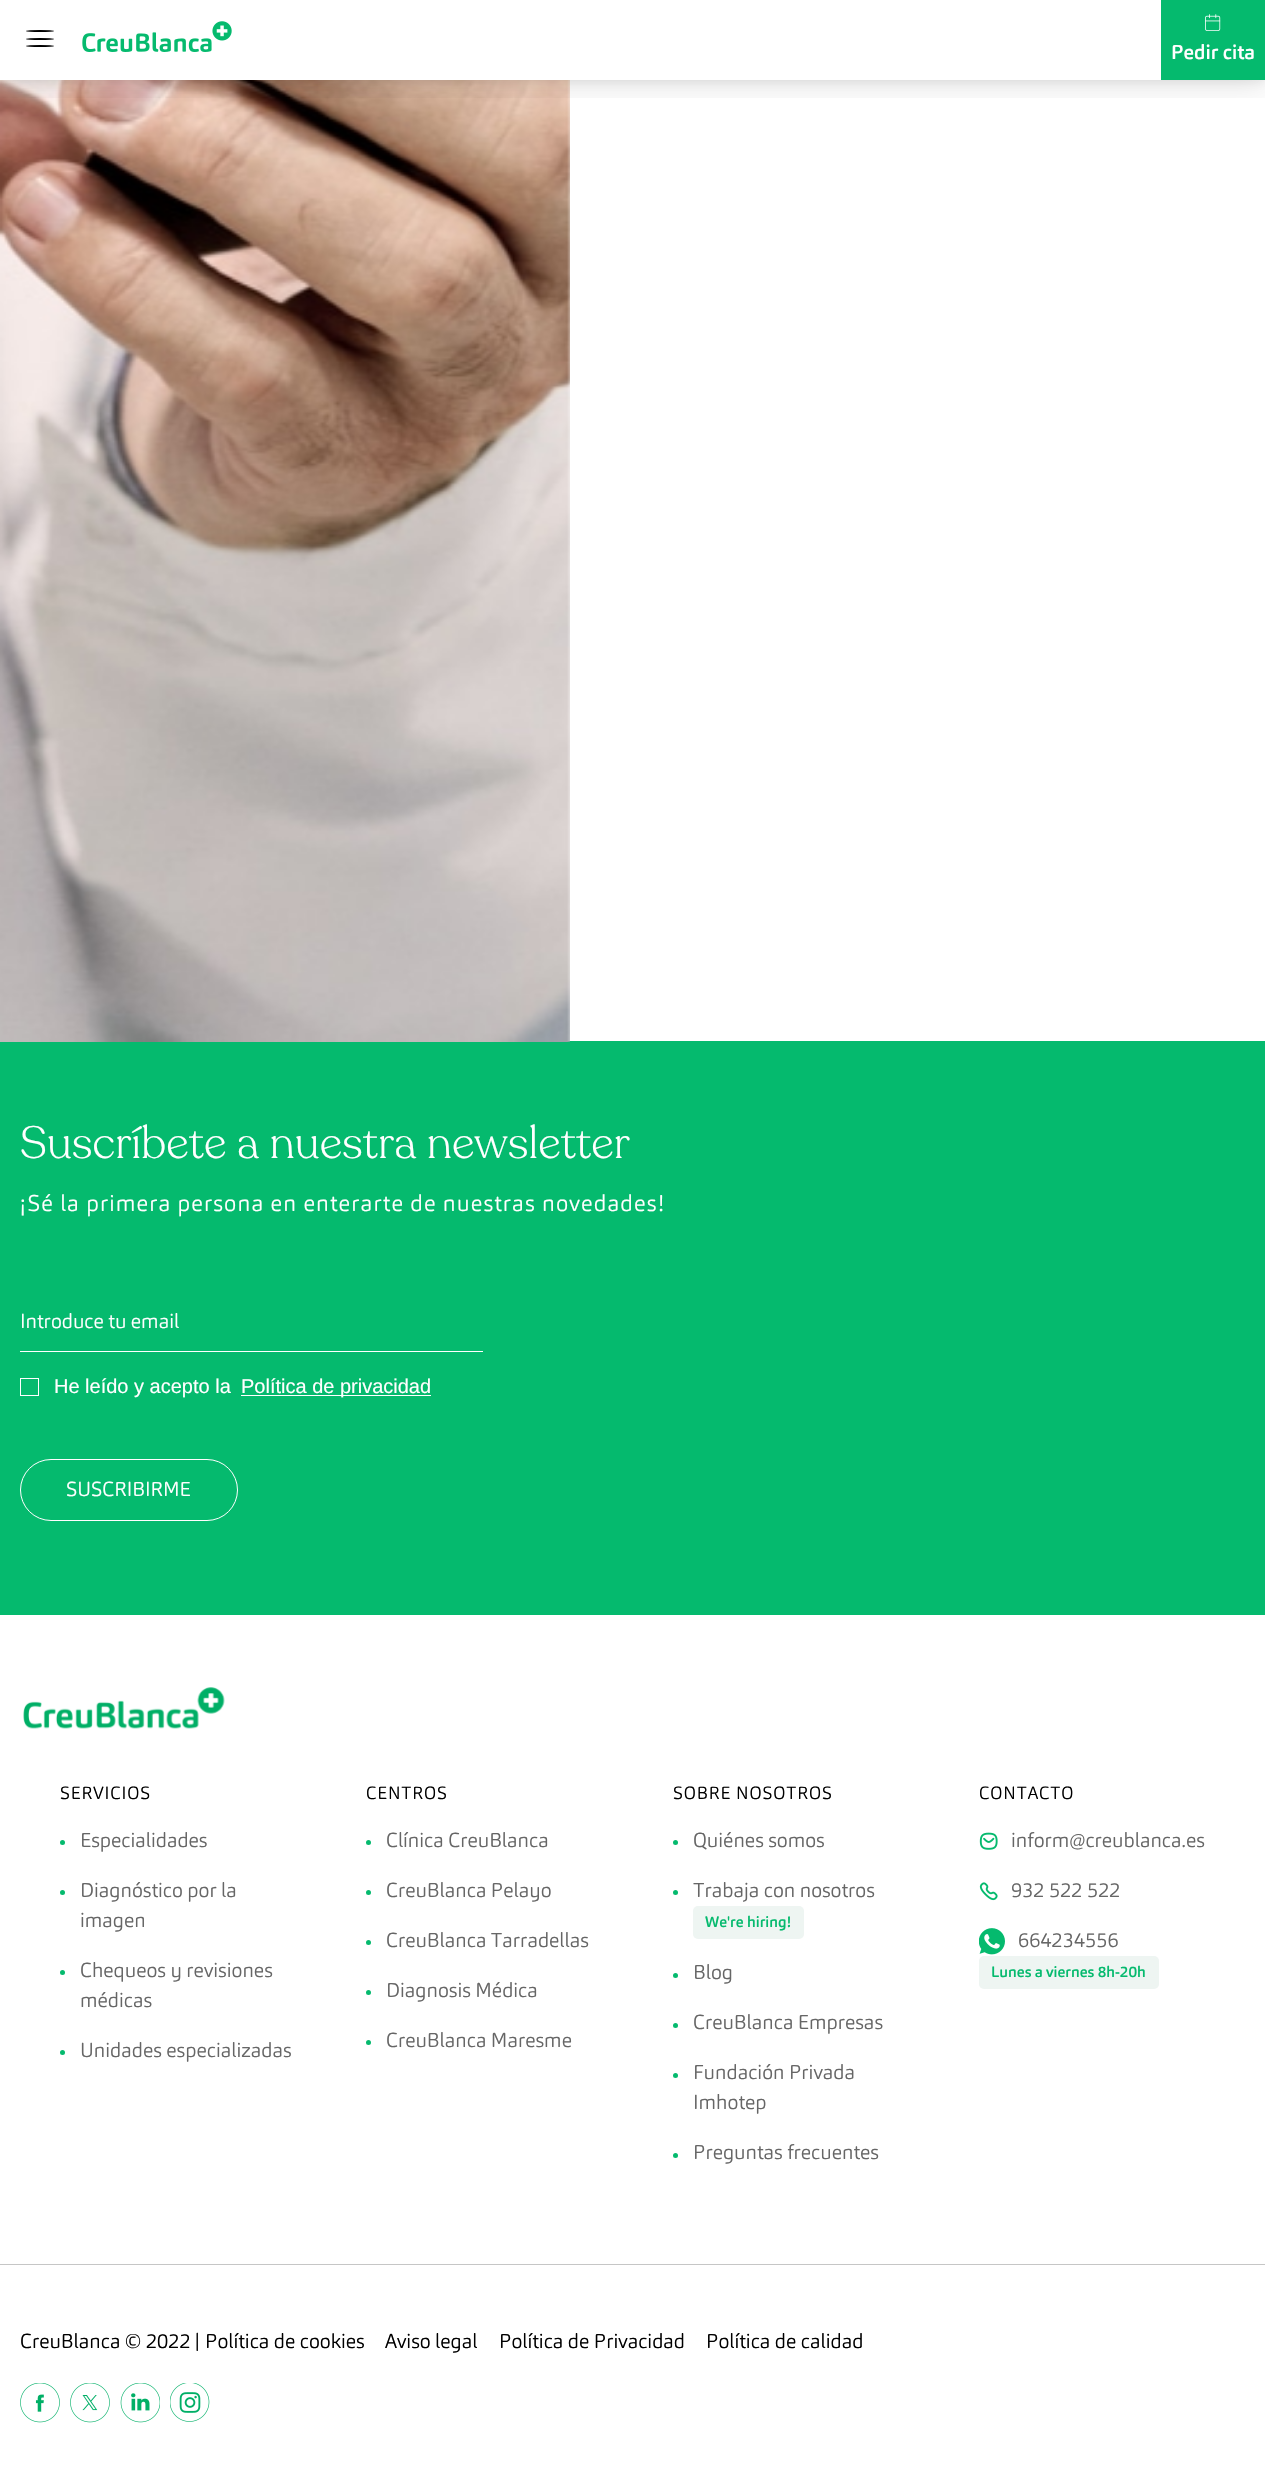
#include "include/core/SkBlurTypes.h"
#include "include/core/SkCanvas.h"
#include "include/core/SkData.h"
#include "include/core/SkFont.h"
#include "include/core/SkFontMgr.h"
#include "include/core/SkImage.h"
#include "include/core/SkMaskFilter.h"
#include "include/core/SkPaint.h"
#include "include/core/SkPathBuilder.h"
#include "include/core/SkTextBlob.h"
#include "include/effects/SkDashPathEffect.h"
#include "include/effects/SkGradientShader.h"
#include "include/utils/SkParsePath.h"

extern sk_sp<SkFontMgr> fontMgr;

void draw(SkCanvas* canvas) {
    SkPaint p;
    p.setAntiAlias(true);
    auto font = [&](const char* family, int weight, float size, bool italic = false) {
        SkFontStyle style(weight, SkFontStyle::kNormal_Width,
            italic ? SkFontStyle::kItalic_Slant : SkFontStyle::kUpright_Slant);
        SkFont result(fontMgr->matchFamilyStyle(family, style), size);
        result.setSubpixel(true);
        return result;
    };
    auto drawTracked = [&](const char* s, float x, float y, const SkFont& font, const SkPaint& ink, float letter, float word) {
        std::vector<SkGlyphID> glyphs(font.countText(s, strlen(s), SkTextEncoding::kUTF8));
        std::vector<float> xs(glyphs.size());
        font.textToGlyphs(s, strlen(s), SkTextEncoding::kUTF8, glyphs);
        font.getXPos(glyphs, xs, x);
        float extra = 0;
        for (size_t i = 0; i < glyphs.size(); i++) {
            xs[i] += extra;
            extra += letter + word * (glyphs[i] == font.unicharToGlyph(' '));
        }
        canvas->drawTextBlob(SkTextBlob::MakeFromPosHGlyphs(glyphs, xs, y, font), 0, 0, ink);
    };
    auto drawPhoto = [&](const char* path, float l, float t, float r, float b) {
        auto image = SkImages::DeferredFromEncodedData(SkData::MakeFromFileName(path));
        canvas->drawImageRect(image, SkRect::MakeLTRB(l, t, r, b), SkSamplingOptions());
    };
    canvas->clear(0xFFFFFFFF);
    p.setColor(0xFF05BA6E);
    canvas->drawRect(SkRect::MakeLTRB(0, 1041, 1265, 1615), p);
    drawPhoto("media/3.png", 0, 80, 570, 1042);
    p.setColor(0x1A000000);
    p.setMaskFilter(SkMaskFilter::MakeBlur(kNormal_SkBlurStyle, 6));
    canvas->drawRect(SkRect::MakeLTRB(0, 0, 1265, 80), p);
    p.setMaskFilter(nullptr);
    p.setColor(0xFFFFFFFF);
    canvas->drawRect(SkRect::MakeLTRB(0, 0, 1161, 80), p);
    canvas->save();
    canvas->clipRect(SkRect::MakeLTRB(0, 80, 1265, 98));
    p.setColor(0x1A000000);
    p.setMaskFilter(SkMaskFilter::MakeBlur(kNormal_SkBlurStyle, 15));
    canvas->drawRect(SkRect::MakeLTRB(0, 5, 1265, 85), p);
    p.setMaskFilter(nullptr);
    canvas->restore();
    p.setColor(0xFF000000);
    canvas->drawOval(SkRect::MakeLTRB(26, 30, 54, 32), p);
    canvas->drawOval(SkRect::MakeLTRB(26, 38, 54, 40), p);
    canvas->drawOval(SkRect::MakeLTRB(26, 45, 54, 47), p);
    drawPhoto("media/1.png", 82, 21, 232, 52);
    p.setColor(0xFF05BA6E);
    canvas->drawRect(SkRect::MakeLTRB(1161, 0, 1265, 80), p);
    drawPhoto("media/2.png", 1205, 14, 1221, 31);
    auto font1 = font("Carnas", 500, 20);
    p.setColor(0xFFFFFFFF);
    canvas->drawString("Pedir cita", 1171, 59, font1, p);
    auto font2 = font("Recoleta", 300, 45);
    canvas->drawString("Suscríbete a nuestra newsletter", 20, 1158, font2, p);
    auto font3 = font("Carnas", 300, 22.5f);
    drawTracked("¡Sé la primera persona en enterarte de nuestras novedades!", 20, 1211, font3, p, 1.12f, 0);
    auto font4 = font("Carnas", 300, 20);
    canvas->drawString("Introduce tu email", 20, 1328, font4, p);
    canvas->drawRect(SkRect::MakeLTRB(20, 1351, 483, 1352), p);
    p.setStyle(SkPaint::kStroke_Style);
    p.setStrokeWidth(1);
    canvas->drawRect(SkRect::MakeLTRB(20.5f, 1378.5f, 38.5f, 1395.5f), p);
    auto font5 = font("Liberation Sans", 400, 20);
    p.setStyle(SkPaint::kFill_Style);
    canvas->drawString("He leído y acepto la", 54, 1393, font5, p);
    canvas->drawRect(SkRect::MakeLTRB(241, 1395, 431, 1396), p);
    canvas->drawString("Política de privacidad", 241, 1393, font5, p);
    p.setStyle(SkPaint::kStroke_Style);
    canvas->drawRoundRect(SkRect::MakeLTRB(20.5f, 1459.5f, 237.5f, 1520.5f), 30.5f, 30.5f, p);
    p.setStyle(SkPaint::kFill_Style);
    canvas->drawString("SUSCRIBIRME", 66, 1496, font4, p);
    drawPhoto("media/4.png", 23, 1687, 225, 1729);
    auto font6 = font("Carnas", 300, 17.5f);
    p.setColor(0xFF000000);
    drawTracked("SERVICIOS", 60, 1799, font6, p, 0.9f, 0);
    p.setColor(0xFF05BA6E);
    canvas->drawCircle(62.5f, 1842.5f, 2.5f, p);
    p.setColor(0xFF666666);
    canvas->drawString("Especialidades", 80, 1847, font4, p);
    p.setColor(0xFF05BA6E);
    canvas->drawCircle(62.5f, 1892.5f, 2.5f, p);
    p.setColor(0xFF666666);
    canvas->drawString("Diagnóstico por la", 80, 1897, font4, p);
    canvas->drawString("imagen", 80, 1927, font4, p);
    p.setColor(0xFF05BA6E);
    canvas->drawCircle(62.5f, 1972.5f, 2.5f, p);
    p.setColor(0xFF666666);
    canvas->drawString("Chequeos y revisiones", 80, 1977, font4, p);
    canvas->drawString("médicas", 80, 2007, font4, p);
    p.setColor(0xFF05BA6E);
    canvas->drawCircle(62.5f, 2052.5f, 2.5f, p);
    p.setColor(0xFF666666);
    canvas->drawString("Unidades especializadas", 80, 2057, font4, p);
    p.setColor(0xFF000000);
    drawTracked("CENTROS", 366, 1799, font6, p, 0.9f, 0);
    p.setColor(0xFF05BA6E);
    canvas->drawCircle(368.5f, 1842.5f, 2.5f, p);
    p.setColor(0xFF666666);
    canvas->drawString("Clínica CreuBlanca", 386, 1847, font4, p);
    p.setColor(0xFF05BA6E);
    canvas->drawCircle(368.5f, 1892.5f, 2.5f, p);
    p.setColor(0xFF666666);
    canvas->drawString("CreuBlanca Pelayo", 386, 1897, font4, p);
    p.setColor(0xFF05BA6E);
    canvas->drawCircle(368.5f, 1942.5f, 2.5f, p);
    p.setColor(0xFF666666);
    canvas->drawString("CreuBlanca Tarradellas", 386, 1947, font4, p);
    p.setColor(0xFF05BA6E);
    canvas->drawCircle(368.5f, 1992.5f, 2.5f, p);
    p.setColor(0xFF666666);
    canvas->drawString("Diagnosis Médica", 386, 1997, font4, p);
    p.setColor(0xFF05BA6E);
    canvas->drawCircle(368.5f, 2042.5f, 2.5f, p);
    p.setColor(0xFF666666);
    canvas->drawString("CreuBlanca Maresme", 386, 2047, font4, p);
    p.setColor(0xFF000000);
    drawTracked("SOBRE NOSOTROS", 673, 1799, font6, p, 0.9f, 0);
    p.setColor(0xFF05BA6E);
    canvas->drawCircle(675.5f, 1842.5f, 2.5f, p);
    p.setColor(0xFF666666);
    canvas->drawString("Quiénes somos", 693, 1847, font4, p);
    p.setColor(0xFF05BA6E);
    canvas->drawCircle(675.5f, 1892.5f, 2.5f, p);
    p.setColor(0xFF666666);
    canvas->drawString("Trabaja con nosotros", 693, 1897, font4, p);
    p.setColor(0xFFEEF5F2);
    canvas->drawRoundRect(SkRect::MakeLTRB(693, 1906, 804, 1939), 5, 5, p);
    auto font7 = font("Carnas", 500, 15);
    p.setColor(0xFF05BA6E);
    canvas->drawString("We're hiring!", 705, 1927, font7, p);
    canvas->drawCircle(675.5f, 1975.5f, 2.5f, p);
    p.setColor(0xFF666666);
    canvas->drawString("Blog", 693, 1979, font4, p);
    p.setColor(0xFF05BA6E);
    canvas->drawCircle(675.5f, 2025.5f, 2.5f, p);
    p.setColor(0xFF666666);
    canvas->drawString("CreuBlanca Empresas", 693, 2029, font4, p);
    p.setColor(0xFF05BA6E);
    canvas->drawCircle(675.5f, 2075.5f, 2.5f, p);
    p.setColor(0xFF666666);
    canvas->drawString("Fundación Privada", 693, 2079, font4, p);
    canvas->drawString("Imhotep", 693, 2109, font4, p);
    p.setColor(0xFF05BA6E);
    canvas->drawCircle(675.5f, 2155.5f, 2.5f, p);
    p.setColor(0xFF666666);
    canvas->drawString("Preguntas frecuentes", 693, 2159, font4, p);
    p.setColor(0xFF000000);
    drawTracked("CONTACTO", 979, 1799, font6, p, 0.9f, 0);
    drawPhoto("media/5.png", 979, 1832, 998, 1850);
    p.setColor(0xFF666666);
    canvas->drawString("inform@creublanca.es", 1011, 1847, font4, p);
    drawPhoto("media/6.png", 979, 1882, 998, 1901);
    canvas->drawString("932 522 522", 1011, 1897, font4, p);
    drawPhoto("media/7.png", 979, 1928, 1005, 1955);
    canvas->drawString("664234556", 1018, 1947, font4, p);
    p.setColor(0xFFEEF5F2);
    canvas->drawRoundRect(SkRect::MakeLTRB(979, 1956, 1159, 1989), 5, 5, p);
    p.setColor(0xFF05BA6E);
    canvas->drawString("Lunes a viernes 8h-20h", 991, 1977, font7, p);
    p.setColor(0xFFC6C6C6);
    canvas->drawRect(SkRect::MakeLTRB(0, 2264, 1265, 2265), p);
    p.setColor(0xFF000000);
    {
        const struct { const char* s; float x, y; } items[] = {
            {"CreuBlanca © 2022 |", 20, 2348},
            {"Política de cookies", 205, 2348},
            {"Aviso legal", 385, 2348},
            {"Política de Privacidad", 499, 2348},
            {"Política de calidad", 706, 2348},
        };
        for (auto [s, x, y] : items) {
            canvas->drawString(s, x, y, font4, p);
        }
    }
    drawPhoto("media/8.png", 20, 2383, 60, 2423);
    drawPhoto("media/9.png", 70, 2383, 110, 2423);
    drawPhoto("media/10.png", 120, 2383, 160, 2423);
    drawPhoto("media/11.png", 170, 2383, 210, 2422);
}
